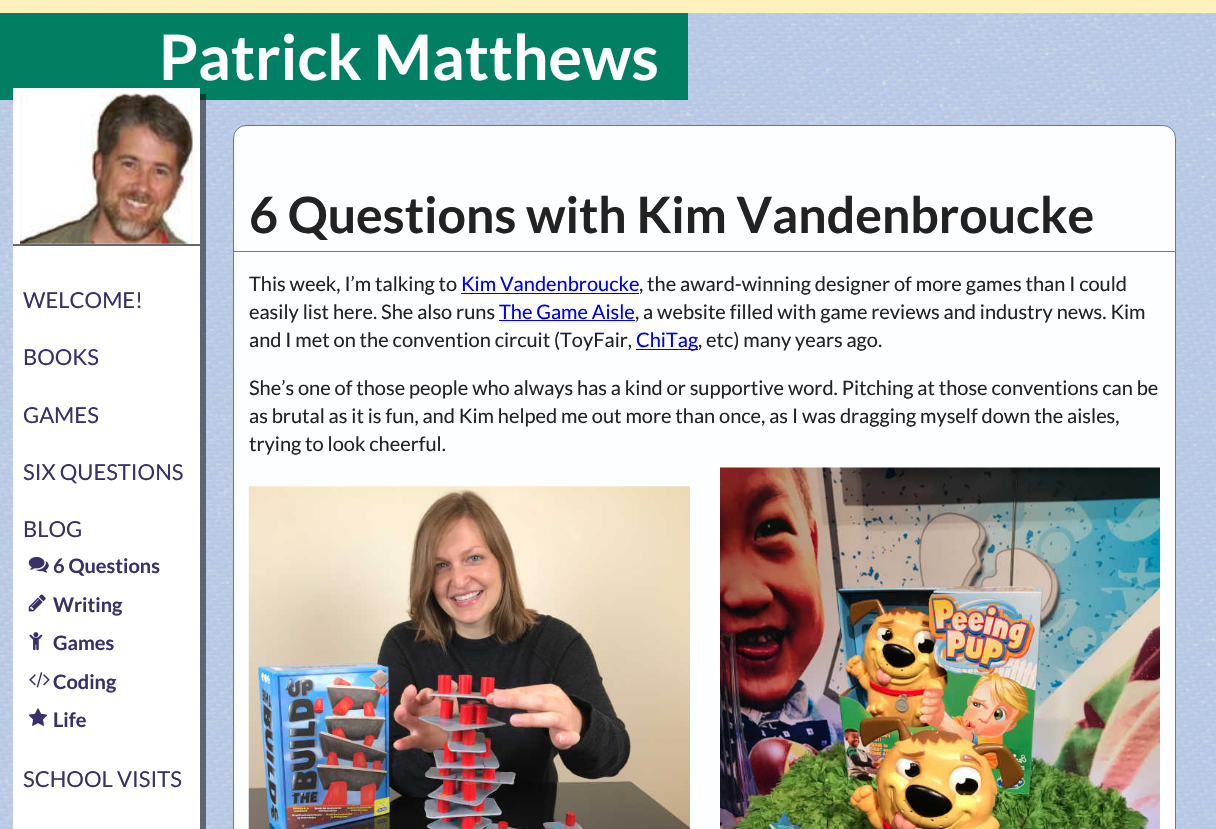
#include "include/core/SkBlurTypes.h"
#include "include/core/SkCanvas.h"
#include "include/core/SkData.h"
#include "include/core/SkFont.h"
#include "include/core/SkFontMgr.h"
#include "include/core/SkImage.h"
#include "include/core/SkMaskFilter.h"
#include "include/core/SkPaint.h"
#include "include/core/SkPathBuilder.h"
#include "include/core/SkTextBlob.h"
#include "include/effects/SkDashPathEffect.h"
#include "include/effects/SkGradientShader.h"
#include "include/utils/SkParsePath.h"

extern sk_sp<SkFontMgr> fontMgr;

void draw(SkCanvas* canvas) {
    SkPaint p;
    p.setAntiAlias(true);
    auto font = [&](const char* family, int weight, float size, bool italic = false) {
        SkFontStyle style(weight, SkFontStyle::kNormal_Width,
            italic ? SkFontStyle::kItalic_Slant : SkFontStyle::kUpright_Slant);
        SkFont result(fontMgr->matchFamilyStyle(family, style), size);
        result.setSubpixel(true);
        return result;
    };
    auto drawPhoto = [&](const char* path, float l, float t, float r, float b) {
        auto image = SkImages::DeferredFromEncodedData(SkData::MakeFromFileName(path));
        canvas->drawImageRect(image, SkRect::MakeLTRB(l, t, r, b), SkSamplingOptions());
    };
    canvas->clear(0xFFFFF1BC);
    p.setColor(0xFFB4C7E7);
    canvas->drawRect(SkRect::MakeLTRB(0, 13, 1216, 829), p);
    drawPhoto("media/1.png", 0, 12, 1216, 829);
    p.setColor(0xFF007F62);
    canvas->drawRect(SkRect::MakeLTRB(0, 13, 688, 100), p);
    auto font1 = font("Lato", 700, 62.5f);
    p.setColor(0xFFFFFFFF);
    canvas->drawString("Patrick Matthews", 159, 80, font1, p);
    p.setColor(0x80000000);
    canvas->drawPath(SkPathBuilder().moveTo(19, 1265).lineTo(19, 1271).lineTo(206, 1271).lineTo(206, 94).lineTo(200, 94).lineTo(200, 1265).close().detach(), p);
    p.setColor(0xFFFFFFFF);
    canvas->drawRect(SkRect::MakeLTRB(13, 88, 200, 244), p);
    p.setColor(0xFF666666);
    canvas->drawRect(SkRect::MakeLTRB(13, 244, 200, 246), p);
    drawPhoto("media/2.png", 20, 93, 193, 244);
    p.setColor(0xFFFFFFFF);
    canvas->drawRect(SkRect::MakeLTRB(13, 246, 200, 829), p);
    auto font2 = font("Lato", 400, 22);
    p.setColor(0xFF392F69);
    {
        const struct { const char* s; float x, y; } items[] = {
            {"WELCOME!", 23, 308},
            {"BOOKS", 23, 365},
            {"GAMES", 23, 423},
            {"SIX QUESTIONS", 23, 480},
            {"BLOG", 23, 537},
        };
        for (auto [s, x, y] : items) {
            canvas->drawString(s, x, y, font2, p);
        }
    }
    drawPhoto("media/3.png", 28, 557, 49, 573);
    auto font3 = font("Lato", 700, 20);
    canvas->drawString("6 Questions", 53, 573, font3, p);
    drawPhoto("media/4.png", 28, 594, 46, 612);
    canvas->drawString("Writing", 53, 612, font3, p);
    drawPhoto("media/5.png", 29, 632, 43, 651);
    canvas->drawString("Games", 53, 650, font3, p);
    drawPhoto("media/6.png", 29, 672, 50, 688);
    canvas->drawString("Coding", 53, 689, font3, p);
    drawPhoto("media/7.png", 28, 708, 48, 726);
    canvas->drawString("Life", 53, 727, font3, p);
    canvas->drawString("SCHOOL VISITS", 23, 787, font2, p);
    p.setColor(0xFFFDFEFF);
    canvas->drawRoundRect(SkRect::MakeLTRB(233.5f, 125.5f, 1175.5f, 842.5f), 12.5f, 12.5f, p);
    p.setStyle(SkPaint::kStroke_Style);
    p.setStrokeWidth(1);
    p.setColor(0xFF5A78AB);
    canvas->drawRoundRect(SkRect::MakeLTRB(233.5f, 125.5f, 1175.5f, 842.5f), 12.5f, 12.5f, p);
    p.setStyle(SkPaint::kFill_Style);
    canvas->drawRect(SkRect::MakeLTRB(234, 251, 1175, 252), p);
    auto font4 = font("Lato", 700, 50);
    p.setColor(0xFF222222);
    canvas->drawString("6 Questions with Kim Vandenbroucke", 249, 233, font4, p);
    auto font5 = font("Lato", 400, 20);
    canvas->drawString("This week, I’m talking to", 249, 291, font5, p);
    p.setColor(0xFF0000EE);
    canvas->drawString("Kim Vandenbroucke", 461, 291, font5, p);
    canvas->drawRect(SkRect::MakeLTRB(461, 293, 639, 294), p);
    p.setColor(0xFF222222);
    canvas->drawString(", the award-winning designer of more games than I could", 639, 291, font5, p);
    canvas->drawString("easily list here. She also runs", 249, 319, font5, p);
    p.setColor(0xFF0000EE);
    canvas->drawString("The Game Aisle", 499, 319, font5, p);
    canvas->drawRect(SkRect::MakeLTRB(499, 320, 635, 321), p);
    p.setColor(0xFF222222);
    canvas->drawString(", a website filled with game reviews and industry news. Kim", 635, 319, font5, p);
    canvas->drawString("and I met on the convention circuit (ToyFair,", 249, 347, font5, p);
    p.setColor(0xFF0000EE);
    canvas->drawRect(SkRect::MakeLTRB(636, 349, 698, 350), p);
    canvas->drawString("ChiTag", 636, 347, font5, p);
    p.setColor(0xFF222222);
    {
        const struct { const char* s; float x, y; } items[] = {
            {", etc) many years ago.", 698, 347},
            {"She’s one of those people who always has a kind or supportive word. Pitching at those conventions can be", 249, 395},
            {"as brutal as it is fun, and Kim helped me out more than once, as I was dragging myself down the aisles,", 249, 423},
            {"trying to look cheerful.", 249, 451},
        };
        for (auto [s, x, y] : items) {
            canvas->drawString(s, x, y, font5, p);
        }
    }
    drawPhoto("media/8.png", 248, 486, 690, 829);
    drawPhoto("media/9.png", 720, 467, 1160, 829);
}
